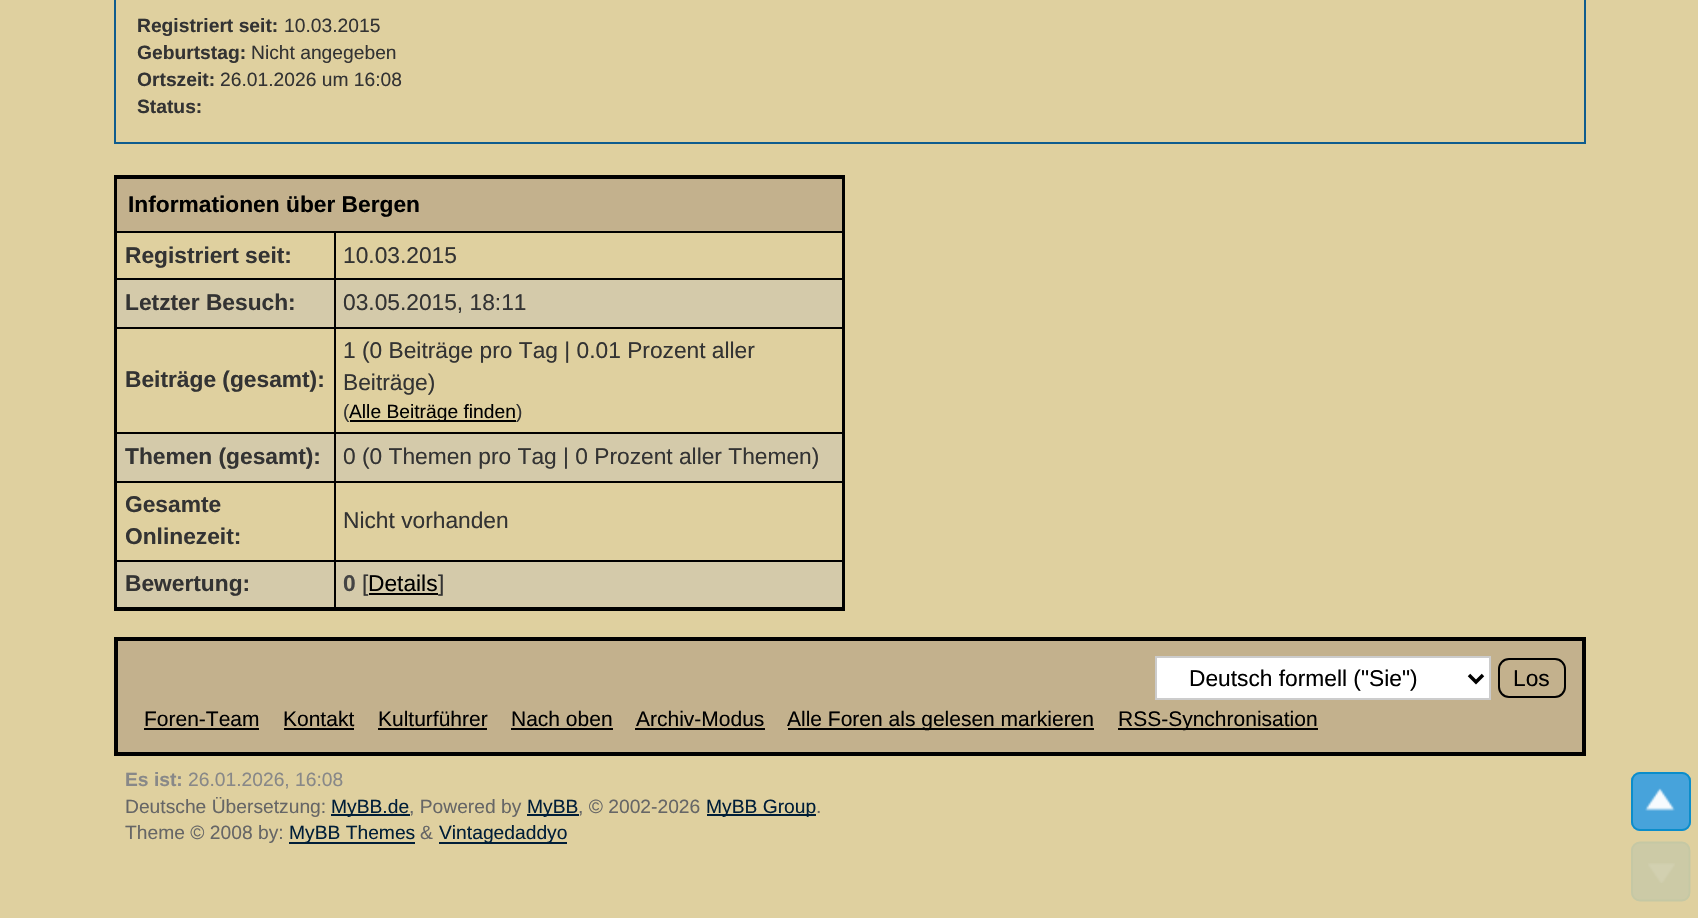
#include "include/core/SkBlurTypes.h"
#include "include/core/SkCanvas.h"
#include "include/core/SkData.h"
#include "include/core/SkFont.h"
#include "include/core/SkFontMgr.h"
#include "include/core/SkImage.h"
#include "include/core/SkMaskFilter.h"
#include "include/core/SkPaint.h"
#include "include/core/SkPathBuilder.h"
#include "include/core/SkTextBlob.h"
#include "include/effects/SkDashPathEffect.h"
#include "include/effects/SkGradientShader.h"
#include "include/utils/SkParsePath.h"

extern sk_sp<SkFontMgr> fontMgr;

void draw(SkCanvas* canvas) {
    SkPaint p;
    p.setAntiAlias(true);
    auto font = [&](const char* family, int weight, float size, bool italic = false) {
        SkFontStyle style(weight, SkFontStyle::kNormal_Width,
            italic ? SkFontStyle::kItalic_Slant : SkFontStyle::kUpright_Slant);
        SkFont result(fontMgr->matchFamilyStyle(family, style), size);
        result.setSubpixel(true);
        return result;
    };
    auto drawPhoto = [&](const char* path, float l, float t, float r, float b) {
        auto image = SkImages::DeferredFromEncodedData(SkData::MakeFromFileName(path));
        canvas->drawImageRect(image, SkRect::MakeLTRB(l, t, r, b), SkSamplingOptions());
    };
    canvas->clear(0xFFDFD09F);
    p.setStyle(SkPaint::kStroke_Style);
    p.setStrokeWidth(2);
    p.setColor(0xFF0F5C8E);
    canvas->drawRect(SkRect::MakeLTRB(115, -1, 1585, 143), p);
    auto font1 = font("Liberation Sans", 700, 19.25f);
    p.setStyle(SkPaint::kFill_Style);
    p.setColor(0xFF333333);
    canvas->drawString("Registriert seit:", 137, 32, font1, p);
    auto font2 = font("Liberation Sans", 400, 19.25f);
    canvas->drawString("10.03.2015", 284, 32, font2, p);
    canvas->drawString("Geburtstag:", 137, 59, font1, p);
    canvas->drawString("Nicht angegeben", 251, 59, font2, p);
    canvas->drawString("Ortszeit:", 137, 86, font1, p);
    canvas->drawString("26.01.2026 um 16:08", 220, 86, font2, p);
    canvas->drawString("Status:", 137, 113, font1, p);
    p.setColor(0xFF000000);
    canvas->drawRect(SkRect::MakeLTRB(114, 175, 845, 611), p);
    p.setColor(0xFFC3B18D);
    canvas->drawRect(SkRect::MakeLTRB(117, 179, 842, 231), p);
    auto font3 = font("Liberation Sans", 700, 22.75f);
    p.setColor(0xFF000000);
    canvas->drawString("Informationen über Bergen", 128, 212, font3, p);
    p.setColor(0xFFDFD09F);
    canvas->drawRect(SkRect::MakeLTRB(117, 233, 334, 278), p);
    p.setColor(0xFF333333);
    canvas->drawString("Registriert seit:", 125, 263, font3, p);
    p.setColor(0xFFDFD09F);
    canvas->drawRect(SkRect::MakeLTRB(336, 233, 842, 278), p);
    auto font4 = font("Liberation Sans", 400, 22.75f);
    p.setColor(0xFF333333);
    canvas->drawString("10.03.2015", 343, 263, font4, p);
    p.setColor(0xFFD4CAAA);
    canvas->drawRect(SkRect::MakeLTRB(117, 280, 334, 327), p);
    p.setColor(0xFF333333);
    canvas->drawString("Letzter Besuch:", 125, 310, font3, p);
    p.setColor(0xFFD4CAAA);
    canvas->drawRect(SkRect::MakeLTRB(336, 280, 842, 327), p);
    p.setColor(0xFF333333);
    canvas->drawString("03.05.2015, 18:11", 343, 310, font4, p);
    p.setColor(0xFFDFD09F);
    canvas->drawRect(SkRect::MakeLTRB(117, 329, 334, 432), p);
    p.setColor(0xFF333333);
    canvas->drawString("Beiträge (gesamt):", 125, 387, font3, p);
    p.setColor(0xFFDFD09F);
    canvas->drawRect(SkRect::MakeLTRB(336, 329, 842, 432), p);
    p.setColor(0xFF333333);
    canvas->drawString("1 (0 Beiträge pro Tag | 0.01 Prozent aller", 343, 358, font4, p);
    canvas->drawString("Beiträge)", 343, 390, font4, p);
    canvas->drawString("(", 343, 418, font2, p);
    p.setColor(0xFF000000);
    canvas->drawRect(SkRect::MakeLTRB(350, 420, 516, 422), p);
    canvas->drawString("Alle Beiträge finden", 349, 418, font2, p);
    p.setColor(0xFF333333);
    canvas->drawString(")", 516, 418, font2, p);
    p.setColor(0xFFD4CAAA);
    canvas->drawRect(SkRect::MakeLTRB(117, 434, 334, 481), p);
    p.setColor(0xFF333333);
    canvas->drawString("Themen (gesamt):", 125, 464, font3, p);
    p.setColor(0xFFD4CAAA);
    canvas->drawRect(SkRect::MakeLTRB(336, 434, 842, 481), p);
    p.setColor(0xFF333333);
    canvas->drawString("0 (0 Themen pro Tag | 0 Prozent aller Themen)", 343, 464, font4, p);
    p.setColor(0xFFDFD09F);
    canvas->drawRect(SkRect::MakeLTRB(117, 483, 334, 560), p);
    p.setColor(0xFF333333);
    canvas->drawString("Gesamte", 125, 512, font3, p);
    canvas->drawString("Onlinezeit:", 125, 544, font3, p);
    p.setColor(0xFFDFD09F);
    canvas->drawRect(SkRect::MakeLTRB(336, 483, 842, 560), p);
    p.setColor(0xFF333333);
    canvas->drawString("Nicht vorhanden", 343, 528, font4, p);
    p.setColor(0xFFD4CAAA);
    canvas->drawRect(SkRect::MakeLTRB(117, 562, 334, 607), p);
    p.setColor(0xFF333333);
    canvas->drawString("Bewertung:", 125, 591, font3, p);
    p.setColor(0xFFD4CAAA);
    canvas->drawRect(SkRect::MakeLTRB(336, 562, 842, 607), p);
    p.setColor(0xFF444444);
    canvas->drawString("0", 343, 591, font3, p);
    p.setColor(0xFF333333);
    canvas->drawString("[", 362, 591, font4, p);
    p.setColor(0xFF000000);
    canvas->drawString("Details", 368, 591, font4, p);
    canvas->drawRect(SkRect::MakeLTRB(369, 593, 438, 595), p);
    p.setColor(0xFF333333);
    canvas->drawString("]", 438, 591, font4, p);
    p.setColor(0xFFC3B18D);
    canvas->drawRect(SkRect::MakeLTRB(116, 639, 1584, 754), p);
    p.setStyle(SkPaint::kStroke_Style);
    p.setStrokeWidth(4);
    p.setColor(0xFF000000);
    canvas->drawRect(SkRect::MakeLTRB(116, 639, 1584, 754), p);
    p.setStyle(SkPaint::kFill_Style);
    p.setColor(0xFFFFFFFF);
    canvas->drawRect(SkRect::MakeLTRB(1156, 657, 1490, 699), p);
    p.setStyle(SkPaint::kStroke_Style);
    p.setStrokeWidth(2);
    p.setColor(0xFFCCCCCC);
    canvas->drawRect(SkRect::MakeLTRB(1156, 657, 1490, 699), p);
    p.setStrokeWidth(3.5f);
    p.setColor(0xFF000000);
    canvas->drawPath(SkPathBuilder().moveTo(1469, 675).lineTo(1476, 682).lineTo(1483, 675).detach(), p);
    p.setStyle(SkPaint::kFill_Style);
    canvas->drawString("Deutsch formell (\"Sie\")", 1189, 686, font4, p);
    p.setStyle(SkPaint::kStroke_Style);
    p.setStrokeWidth(2);
    canvas->drawRoundRect(SkRect::MakeLTRB(1499, 659, 1565, 697), 10, 10, p);
    p.setStyle(SkPaint::kFill_Style);
    canvas->drawString("Los", 1513, 686, font4, p);
    auto font5 = font("Liberation Sans", 400, 21);
    canvas->drawString("Foren-Team", 144, 726, font5, p);
    canvas->drawRect(SkRect::MakeLTRB(144, 728, 259, 730), p);
    canvas->drawString("Kontakt", 283, 726, font5, p);
    canvas->drawRect(SkRect::MakeLTRB(284, 728, 354, 730), p);
    canvas->drawString("Kulturführer", 378, 726, font5, p);
    canvas->drawRect(SkRect::MakeLTRB(378, 728, 487, 730), p);
    canvas->drawString("Nach oben", 511, 726, font5, p);
    canvas->drawRect(SkRect::MakeLTRB(511, 728, 613, 730), p);
    canvas->drawString("Archiv-Modus", 636, 726, font5, p);
    canvas->drawRect(SkRect::MakeLTRB(635, 728, 765, 730), p);
    canvas->drawRect(SkRect::MakeLTRB(788, 728, 1094, 730), p);
    canvas->drawString("Alle Foren als gelesen markieren", 787, 726, font5, p);
    canvas->drawRect(SkRect::MakeLTRB(1118, 728, 1318, 730), p);
    canvas->drawString("RSS-Synchronisation", 1118, 726, font5, p);
    p.setColor(0xFF888888);
    canvas->drawString("Es ist:", 125, 786, font1, p);
    canvas->drawString("26.01.2026, 16:08", 188, 786, font2, p);
    p.setColor(0xFF47A3DB);
    canvas->drawRoundRect(SkRect::MakeLTRB(1631, 772, 1691, 831), 9, 9, p);
    drawPhoto("media/1.png", 1645, 788, 1675, 811);
    p.setStyle(SkPaint::kStroke_Style);
    p.setColor(0xFF0B8DCA);
    canvas->drawRoundRect(SkRect::MakeLTRB(1632, 773, 1690, 830), 8, 8, p);
    p.setStyle(SkPaint::kFill_Style);
    p.setColor(0xFF666666);
    canvas->drawString("Deutsche Übersetzung:", 125, 813, font2, p);
    p.setColor(0xFF001E38);
    canvas->drawRect(SkRect::MakeLTRB(331, 814, 410, 816), p);
    canvas->drawString("MyBB.de", 331, 813, font2, p);
    p.setColor(0xFF666666);
    canvas->drawString(", Powered by", 409, 813, font2, p);
    p.setColor(0xFF001E38);
    canvas->drawRect(SkRect::MakeLTRB(527, 814, 579, 816), p);
    canvas->drawString("MyBB", 527, 813, font2, p);
    p.setColor(0xFF666666);
    canvas->drawString(", © 2002-2026", 578, 813, font2, p);
    p.setColor(0xFF001E38);
    canvas->drawRect(SkRect::MakeLTRB(707, 814, 816, 816), p);
    canvas->drawString("MyBB Group", 706, 813, font2, p);
    p.setColor(0xFF666666);
    canvas->drawString(".", 816, 813, font2, p);
    canvas->drawString("Theme © 2008 by:", 125, 839, font2, p);
    p.setColor(0xFF001E38);
    canvas->drawRect(SkRect::MakeLTRB(289, 842, 415, 844), p);
    canvas->drawString("MyBB Themes", 289, 839, font2, p);
    p.setColor(0xFF666666);
    canvas->drawString("&", 420, 839, font2, p);
    p.setColor(0xFF001E38);
    canvas->drawRect(SkRect::MakeLTRB(439, 842, 567, 844), p);
    canvas->drawString("Vintagedaddyo", 439, 839, font2, p);
    p.setColor(0xFFCCCAA6);
    canvas->drawPath(SkPathBuilder().moveTo(1682, 901).lineTo(1640, 901).cubicTo(1635, 901, 1631, 897, 1631, 892).lineTo(1631, 850).cubicTo(1631, 846, 1635, 842, 1640, 842).lineTo(1682, 842).cubicTo(1687, 842, 1690, 846, 1690, 850).lineTo(1690, 892).cubicTo(1690, 897, 1687, 901, 1682, 901).close().detach(), p);
    drawPhoto("media/2.png", 1648, 863, 1675, 883);
    p.setStyle(SkPaint::kStroke_Style);
    p.setStrokeWidth(1.8f);
    p.setColor(0xFFC5C8A4);
    canvas->drawPath(SkPathBuilder().moveTo(1682, 900.5f).lineTo(1640, 900.5f).cubicTo(1635.5f, 900.5f, 1632, 897, 1632, 892.5f).lineTo(1632, 850.5f).cubicTo(1632, 846, 1635.5f, 842.5f, 1640, 842.5f).lineTo(1682, 842.5f).cubicTo(1686, 842.5f, 1689.5f, 846, 1689.5f, 850.5f).lineTo(1689.5f, 892.5f).cubicTo(1689.5f, 897, 1686, 900.5f, 1682, 900.5f).close().detach(), p);
}
